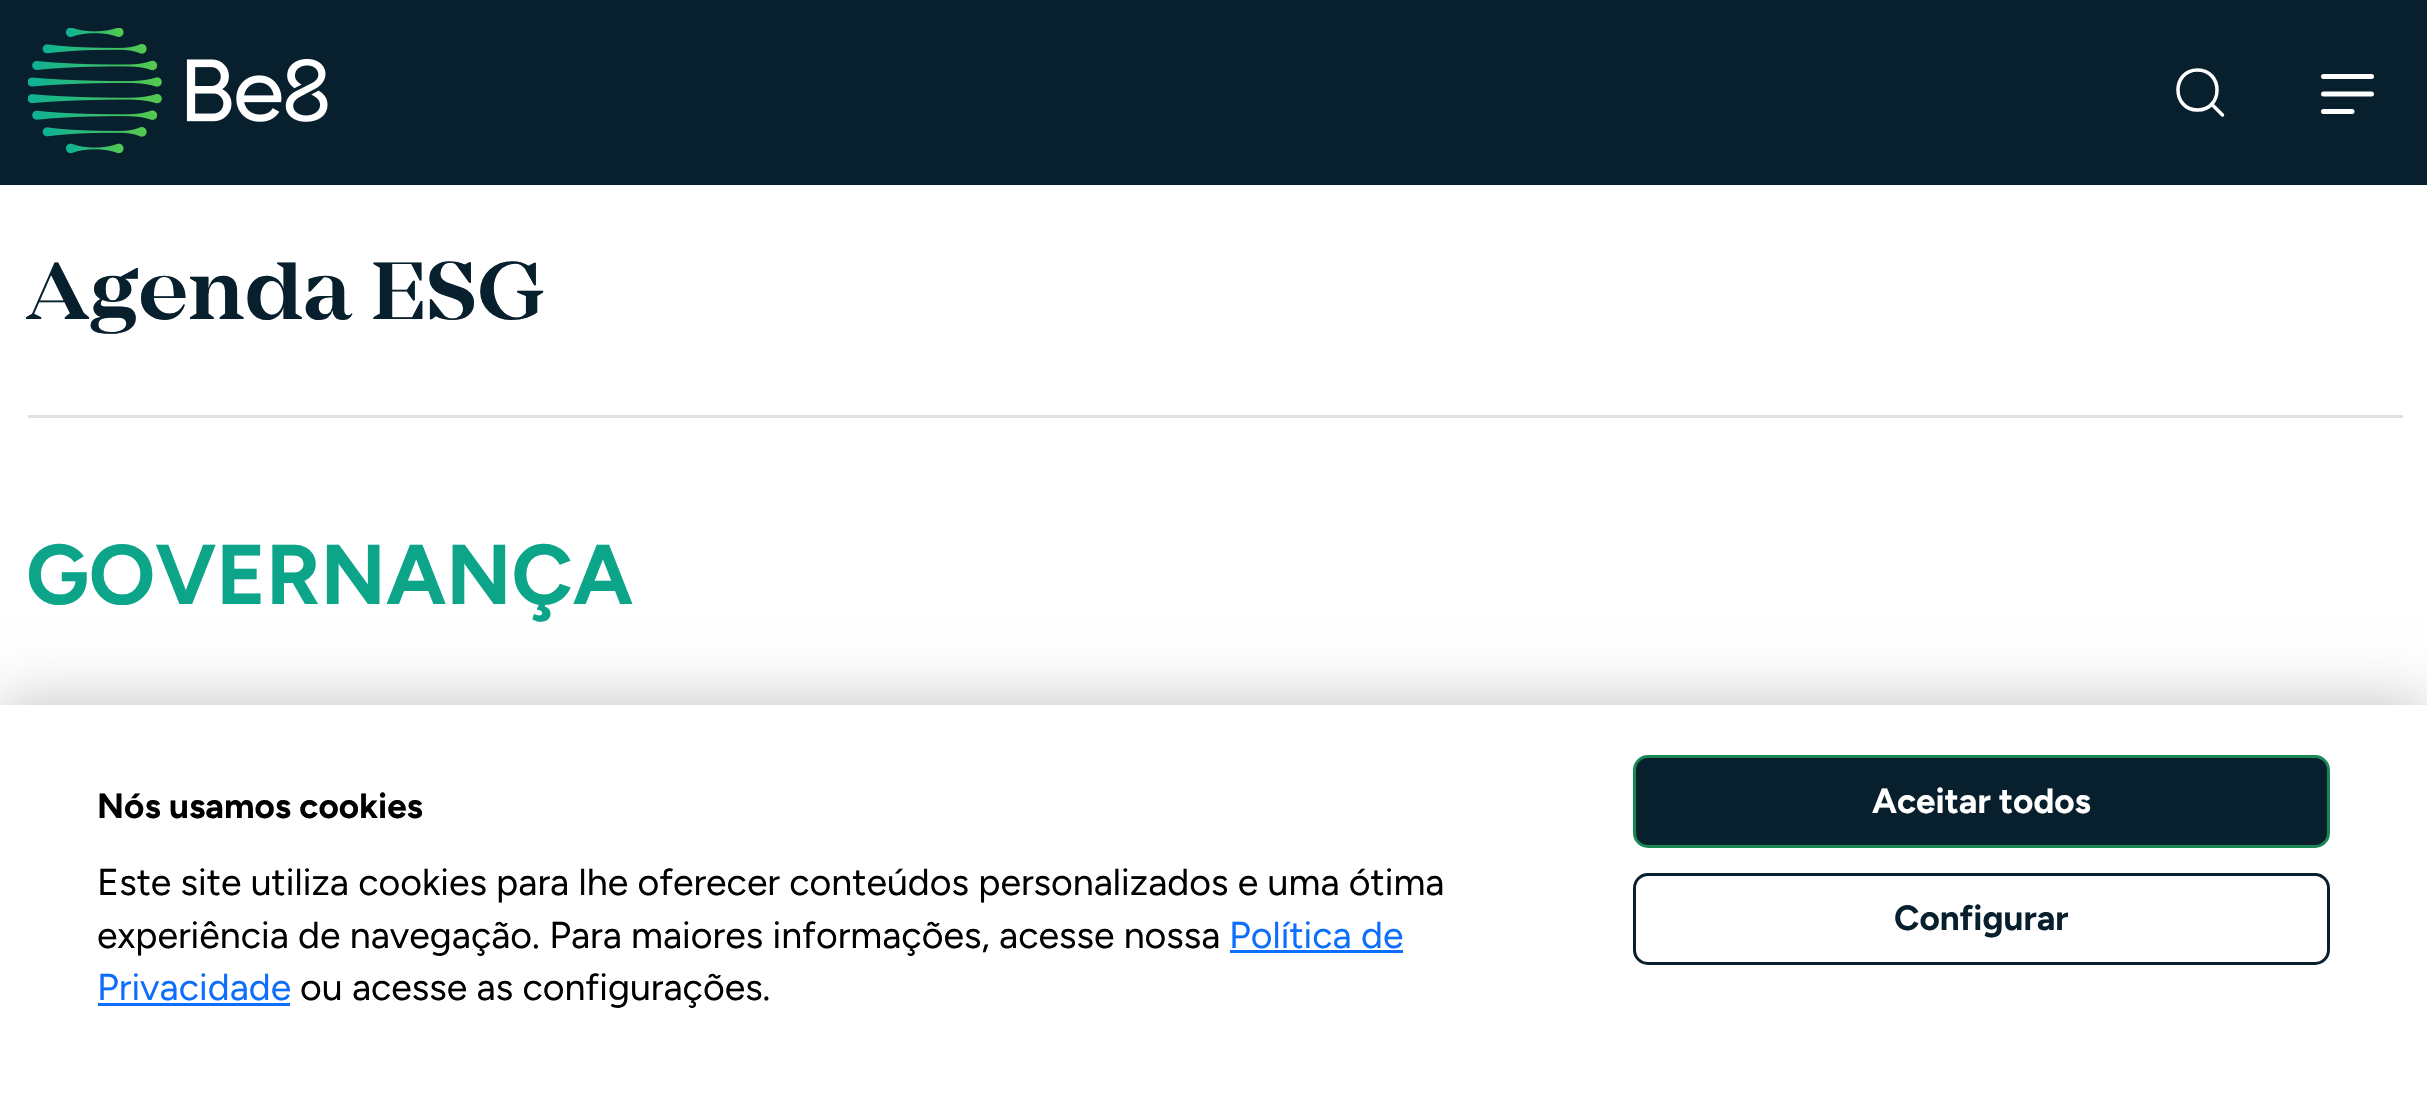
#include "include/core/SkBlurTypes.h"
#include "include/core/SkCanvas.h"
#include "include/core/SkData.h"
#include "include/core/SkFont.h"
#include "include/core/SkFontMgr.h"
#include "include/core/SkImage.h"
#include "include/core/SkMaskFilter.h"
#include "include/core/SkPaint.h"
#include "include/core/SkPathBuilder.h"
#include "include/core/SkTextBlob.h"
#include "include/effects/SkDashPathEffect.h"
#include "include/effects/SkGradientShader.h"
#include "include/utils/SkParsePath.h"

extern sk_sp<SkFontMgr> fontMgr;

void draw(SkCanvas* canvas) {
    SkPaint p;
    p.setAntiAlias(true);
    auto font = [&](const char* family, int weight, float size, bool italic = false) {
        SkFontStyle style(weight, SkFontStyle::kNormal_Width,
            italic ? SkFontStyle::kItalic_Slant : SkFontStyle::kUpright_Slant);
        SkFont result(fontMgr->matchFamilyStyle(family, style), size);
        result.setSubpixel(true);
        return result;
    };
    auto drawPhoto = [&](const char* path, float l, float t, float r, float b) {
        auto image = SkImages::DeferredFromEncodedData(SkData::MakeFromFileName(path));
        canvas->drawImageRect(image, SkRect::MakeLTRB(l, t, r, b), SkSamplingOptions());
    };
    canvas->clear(0xFFFFFFFF);
    p.setColor(0xFF081F2E);
    canvas->drawRect(SkRect::MakeLTRB(0, 0, 2427, 185), p);
    drawPhoto("media/1.png", 28, 28, 328, 154);
    p.setStyle(SkPaint::kStroke_Style);
    p.setStrokeWidth(3.5f);
    p.setStrokeCap(SkPaint::kRound_Cap);
    p.setStrokeJoin(SkPaint::kRound_Join);
    p.setColor(0xFFFFFFFF);
    canvas->drawPath(SkPathBuilder().moveTo(2197.5f, 110).cubicTo(2223.5f, 110, 2223.5f, 70, 2197.5f, 70).cubicTo(2171.5f, 70, 2171.5f, 110, 2197.5f, 110).close().moveTo(2222.5f, 115).lineTo(2211.5f, 104).detach(), p);
    p.setStrokeWidth(5);
    p.setStrokeJoin(SkPaint::kMiter_Join);
    canvas->drawPath(SkPathBuilder().moveTo(2352, 111.5f).lineTo(2323.5f, 111.5f).moveTo(2371.5f, 94).lineTo(2323.5f, 94).moveTo(2371.5f, 76.5f).lineTo(2323.5f, 76.5f).detach(), p);
    p.setStyle(SkPaint::kFill_Style);
    p.setColor(0xFFDEE2E6);
    canvas->drawRect(SkRect::MakeLTRB(28, 415, 2403, 418), p);
    auto font1 = font("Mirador", 600, 84.5f);
    p.setColor(0xFF081F2E);
    canvas->drawString("Agenda ESG", 26, 319, font1, p);
    auto font2 = font("Figtree", 700, 84.5f);
    p.setColor(0xFF0DA58A);
    canvas->drawString("GOVERNANÇA", 26, 604, font2, p);
    p.setColor(0x40000000);
    p.setMaskFilter(SkMaskFilter::MakeBlur(kNormal_SkBlurStyle, 30));
    canvas->drawRect(SkRect::MakeLTRB(0, 705, 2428, 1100), p);
    p.setMaskFilter(nullptr);
    p.setColor(0xFFFFFFFF);
    canvas->drawRect(SkRect::MakeLTRB(0, 705, 2427, 1099), p);
    auto font3 = font("Figtree", 700, 35);
    p.setColor(0xFF000000);
    canvas->drawString("Nós usamos cookies", 97, 818, font3, p);
    auto font4 = font("Figtree", 400, 37.5f);
    canvas->drawString("Este site utiliza cookies para lhe oferecer conteúdos personalizados e uma ótima", 97, 895, font4, p);
    canvas->drawString("experiência de navegação. Para maiores informações, acesse nossa", 97, 948, font4, p);
    p.setColor(0xFF0D6EFD);
    canvas->drawString("Política de", 1229, 948, font4, p);
    canvas->drawRect(SkRect::MakeLTRB(1230, 950, 1403, 953), p);
    canvas->drawString("Privacidade", 97, 1000, font4, p);
    canvas->drawRect(SkRect::MakeLTRB(98, 1003, 290, 1006), p);
    p.setColor(0xFF000000);
    canvas->drawString("ou acesse as configurações.", 300, 1000, font4, p);
    p.setColor(0xFF081F2E);
    canvas->drawRoundRect(SkRect::MakeLTRB(1634.5f, 756.5f, 2328.5f, 846.5f), 13.5f, 13.5f, p);
    p.setStyle(SkPaint::kStroke_Style);
    p.setStrokeWidth(3);
    p.setStrokeCap(SkPaint::kButt_Cap);
    p.setColor(0xFF198754);
    canvas->drawRoundRect(SkRect::MakeLTRB(1634.5f, 756.5f, 2328.5f, 846.5f), 13.5f, 13.5f, p);
    p.setStyle(SkPaint::kFill_Style);
    p.setColor(0xFFFFFFFF);
    canvas->drawString("Aceitar todos", 1872, 813, font3, p);
    p.setStyle(SkPaint::kStroke_Style);
    p.setColor(0xFF081F2E);
    canvas->drawRoundRect(SkRect::MakeLTRB(1634.5f, 874.5f, 2328.5f, 963.5f), 13.5f, 13.5f, p);
    p.setStyle(SkPaint::kFill_Style);
    canvas->drawString("Configurar", 1894, 930, font3, p);
}
